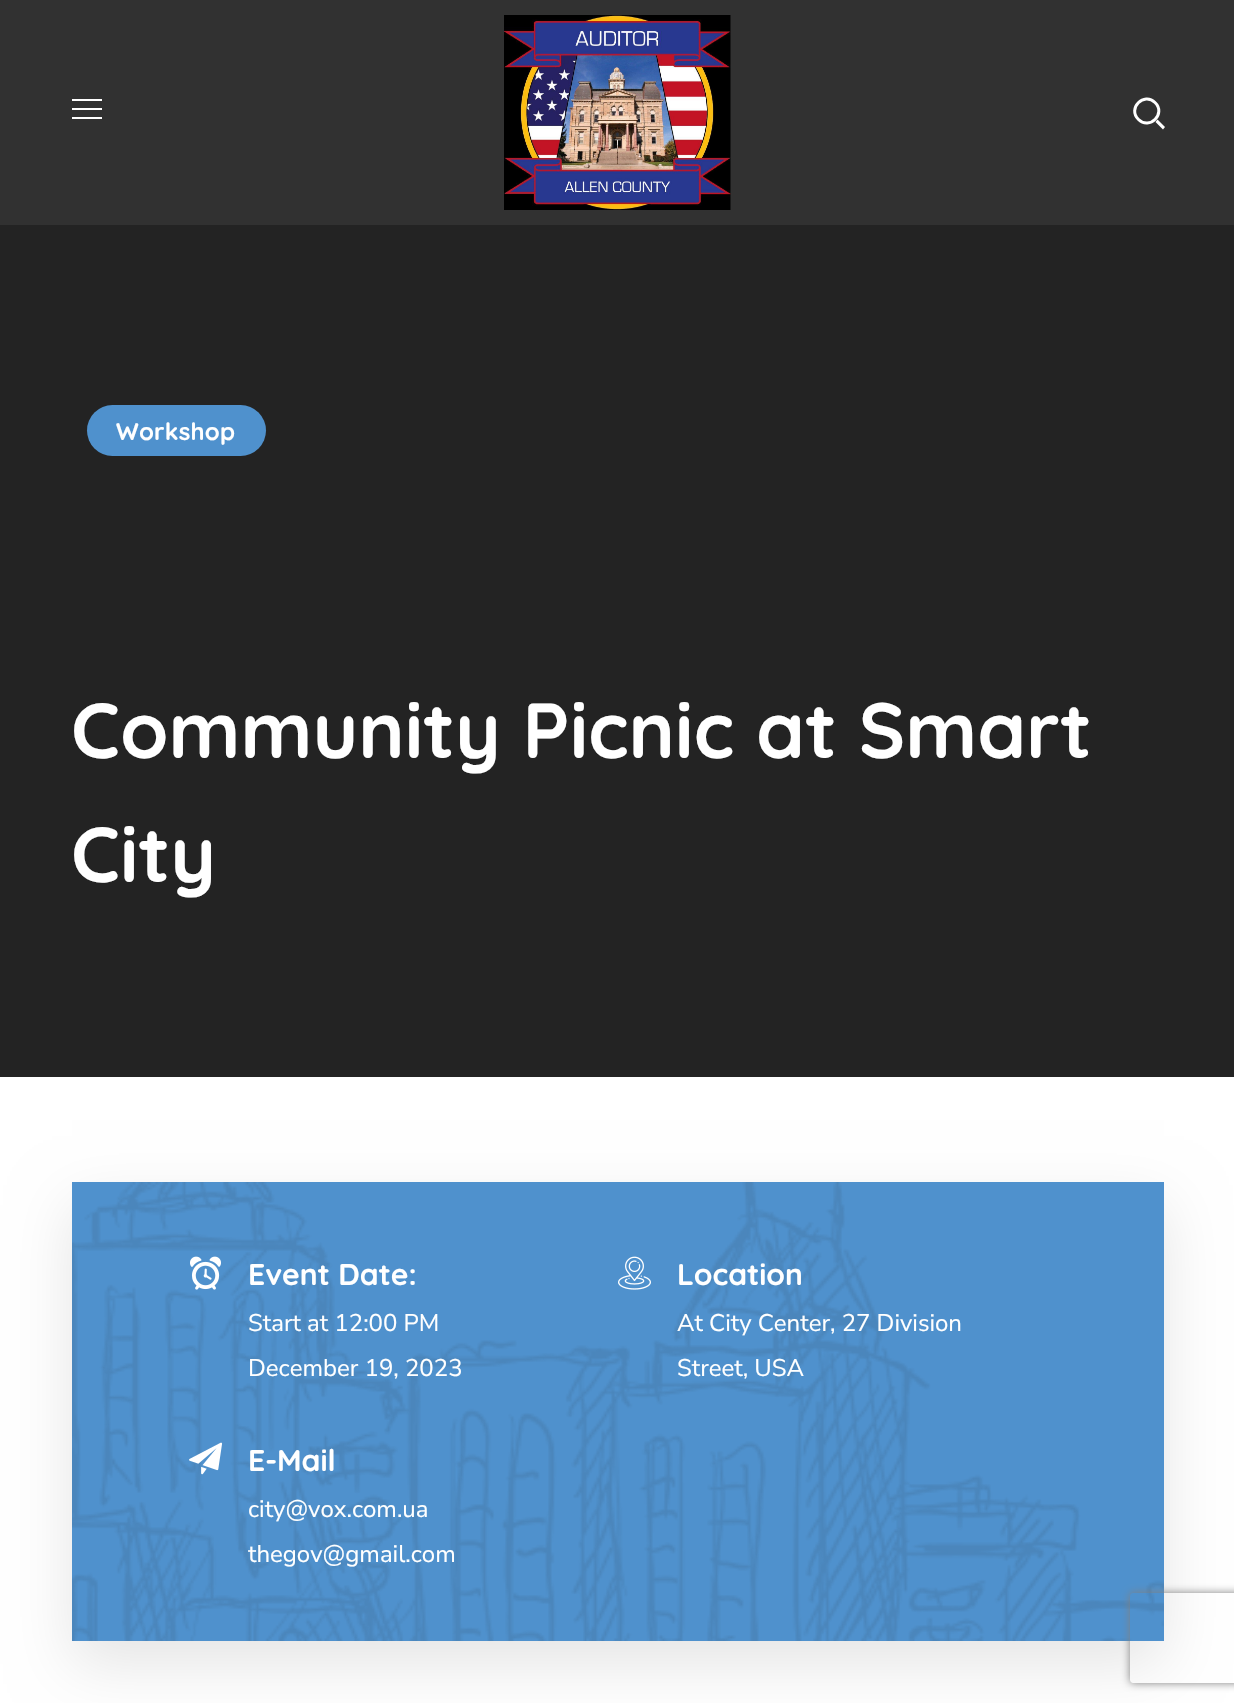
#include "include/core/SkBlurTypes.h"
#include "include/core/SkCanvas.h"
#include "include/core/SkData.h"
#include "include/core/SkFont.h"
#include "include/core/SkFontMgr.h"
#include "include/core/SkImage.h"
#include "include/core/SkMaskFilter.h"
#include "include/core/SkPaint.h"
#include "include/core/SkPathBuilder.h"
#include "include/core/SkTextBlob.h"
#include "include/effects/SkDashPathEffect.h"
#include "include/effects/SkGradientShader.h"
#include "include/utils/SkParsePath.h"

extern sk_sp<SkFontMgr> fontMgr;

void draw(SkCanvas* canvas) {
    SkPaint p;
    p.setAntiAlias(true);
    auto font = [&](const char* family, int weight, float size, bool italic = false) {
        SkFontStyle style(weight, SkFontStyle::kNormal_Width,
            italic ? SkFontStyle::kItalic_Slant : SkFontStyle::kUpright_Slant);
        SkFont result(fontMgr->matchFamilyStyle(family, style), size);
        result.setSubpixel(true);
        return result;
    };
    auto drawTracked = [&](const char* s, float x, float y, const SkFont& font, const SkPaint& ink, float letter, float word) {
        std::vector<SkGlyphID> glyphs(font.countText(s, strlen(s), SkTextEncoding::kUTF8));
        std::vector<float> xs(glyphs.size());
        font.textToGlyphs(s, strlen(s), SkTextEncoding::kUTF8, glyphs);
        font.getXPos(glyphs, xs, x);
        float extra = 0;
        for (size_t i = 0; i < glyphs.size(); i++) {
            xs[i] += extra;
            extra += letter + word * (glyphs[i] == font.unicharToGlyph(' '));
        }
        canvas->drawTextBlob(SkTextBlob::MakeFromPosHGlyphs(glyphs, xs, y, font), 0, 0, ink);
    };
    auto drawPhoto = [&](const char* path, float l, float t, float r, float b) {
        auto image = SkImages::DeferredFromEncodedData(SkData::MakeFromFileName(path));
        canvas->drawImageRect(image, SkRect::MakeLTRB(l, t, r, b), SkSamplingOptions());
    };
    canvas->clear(0xFFFFFFFF);
    {
        const struct { float l, t, r, b; SkColor color; } items[] = {
            {0, 0, 1234, 225, 0xFF313131},
            {72, 99, 102, 101, 0xFFFFFFFF},
            {72, 108, 102, 110, 0xFFFFFFFF},
            {72, 117, 102, 119, 0xFFFFFFFF},
        };
        for (auto [l, t, r, b, color] : items) {
            p.setColor(color);
            canvas->drawRect(SkRect::MakeLTRB(l, t, r, b), p);
        }
    }
    drawPhoto("media/1.png", 504, 15, 731, 210);
    p.setStyle(SkPaint::kStroke_Style);
    p.setStrokeWidth(3);
    canvas->drawPath(SkPathBuilder().moveTo(1155, 102.5f).cubicTo(1166.5f, 113.5f, 1149.5f, 130.5f, 1138.5f, 119.5f).cubicTo(1127, 108.5f, 1144, 91.5f, 1155, 102.5f).close().detach(), p);
    p.setStyle(SkPaint::kFill_Style);
    canvas->drawPath(SkPathBuilder().moveTo(1155.5f, 122).lineTo(1157.5f, 119.5f).lineTo(1165, 127).lineTo(1163, 129.5f).close().detach(), p);
    p.setColor(0xFF232323);
    canvas->drawRect(SkRect::MakeLTRB(0, 225, 1234, 1077), p);
    p.setColor(0xFF4F91CD);
    canvas->drawRoundRect(SkRect::MakeLTRB(87, 405, 266, 456), 25.5f, 25.5f, p);
    auto font1 = font("Quicksand", 700, 24);
    p.setColor(0xFFFFFFFF);
    drawTracked("Workshop", 116, 440, font1, p, 0.25f, 0);
    auto font2 = font("Quicksand", 700, 78);
    canvas->drawString("Community Picnic at Smart", 71, 758, font2, p);
    canvas->drawString("City", 71, 882, font2, p);
    p.setColor(0x1A000000);
    p.setMaskFilter(SkMaskFilter::MakeBlur(kNormal_SkBlurStyle, 28.5f));
    canvas->drawRect(SkRect::MakeLTRB(72, 1205, 1164, 1664), p);
    p.setMaskFilter(nullptr);
    p.setColor(0xFF4F91CD);
    canvas->drawRect(SkRect::MakeLTRB(72, 1182, 1164, 1641), p);
    drawPhoto("media/2.png", 72, 1182, 1164, 1641);
    drawPhoto("media/3.png", 190, 1256, 221, 1290);
    auto font3 = font("Quicksand", 700, 30);
    p.setColor(0xFFFFFFFF);
    canvas->drawString("Event Date:", 248, 1285, font3, p);
    auto font4 = font("Nunito Sans", 400, 24);
    canvas->drawString("Start at 12:00 PM", 248, 1331, font4, p);
    canvas->drawString("December 19, 2023", 248, 1376, font4, p);
    drawPhoto("media/4.png", 618, 1256, 651, 1290);
    canvas->drawString("Location", 677, 1285, font3, p);
    canvas->drawString("At City Center, 27 Division", 677, 1331, font4, p);
    canvas->drawString("Street, USA", 677, 1376, font4, p);
    drawPhoto("media/5.png", 189, 1442, 223, 1475);
    canvas->drawString("E-Mail", 248, 1471, font3, p);
    canvas->drawString("city@vox.com.ua", 248, 1517, font4, p);
    canvas->drawString("thegov@gmail.com", 248, 1562, font4, p);
    canvas->save();
    canvas->clipPath(SkPathBuilder(SkPathFillType::kEvenOdd).moveTo(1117, 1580).lineTo(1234, 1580).lineTo(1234, 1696).lineTo(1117, 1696).close().moveTo(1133, 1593).lineTo(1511, 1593).cubicTo(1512.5f, 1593, 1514, 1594.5f, 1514, 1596).lineTo(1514, 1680).cubicTo(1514, 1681.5f, 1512.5f, 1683, 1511, 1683).lineTo(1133, 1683).cubicTo(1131.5f, 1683, 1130, 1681.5f, 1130, 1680).lineTo(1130, 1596).cubicTo(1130, 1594.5f, 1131.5f, 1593, 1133, 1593).close().detach(), true);
    p.setColor(0xFF808080);
    p.setMaskFilter(SkMaskFilter::MakeBlur(kNormal_SkBlurStyle, 4));
    canvas->drawRoundRect(SkRect::MakeLTRB(1130, 1593, 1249, 1683), 3, 3, p);
    p.setMaskFilter(nullptr);
    canvas->restore();
}
